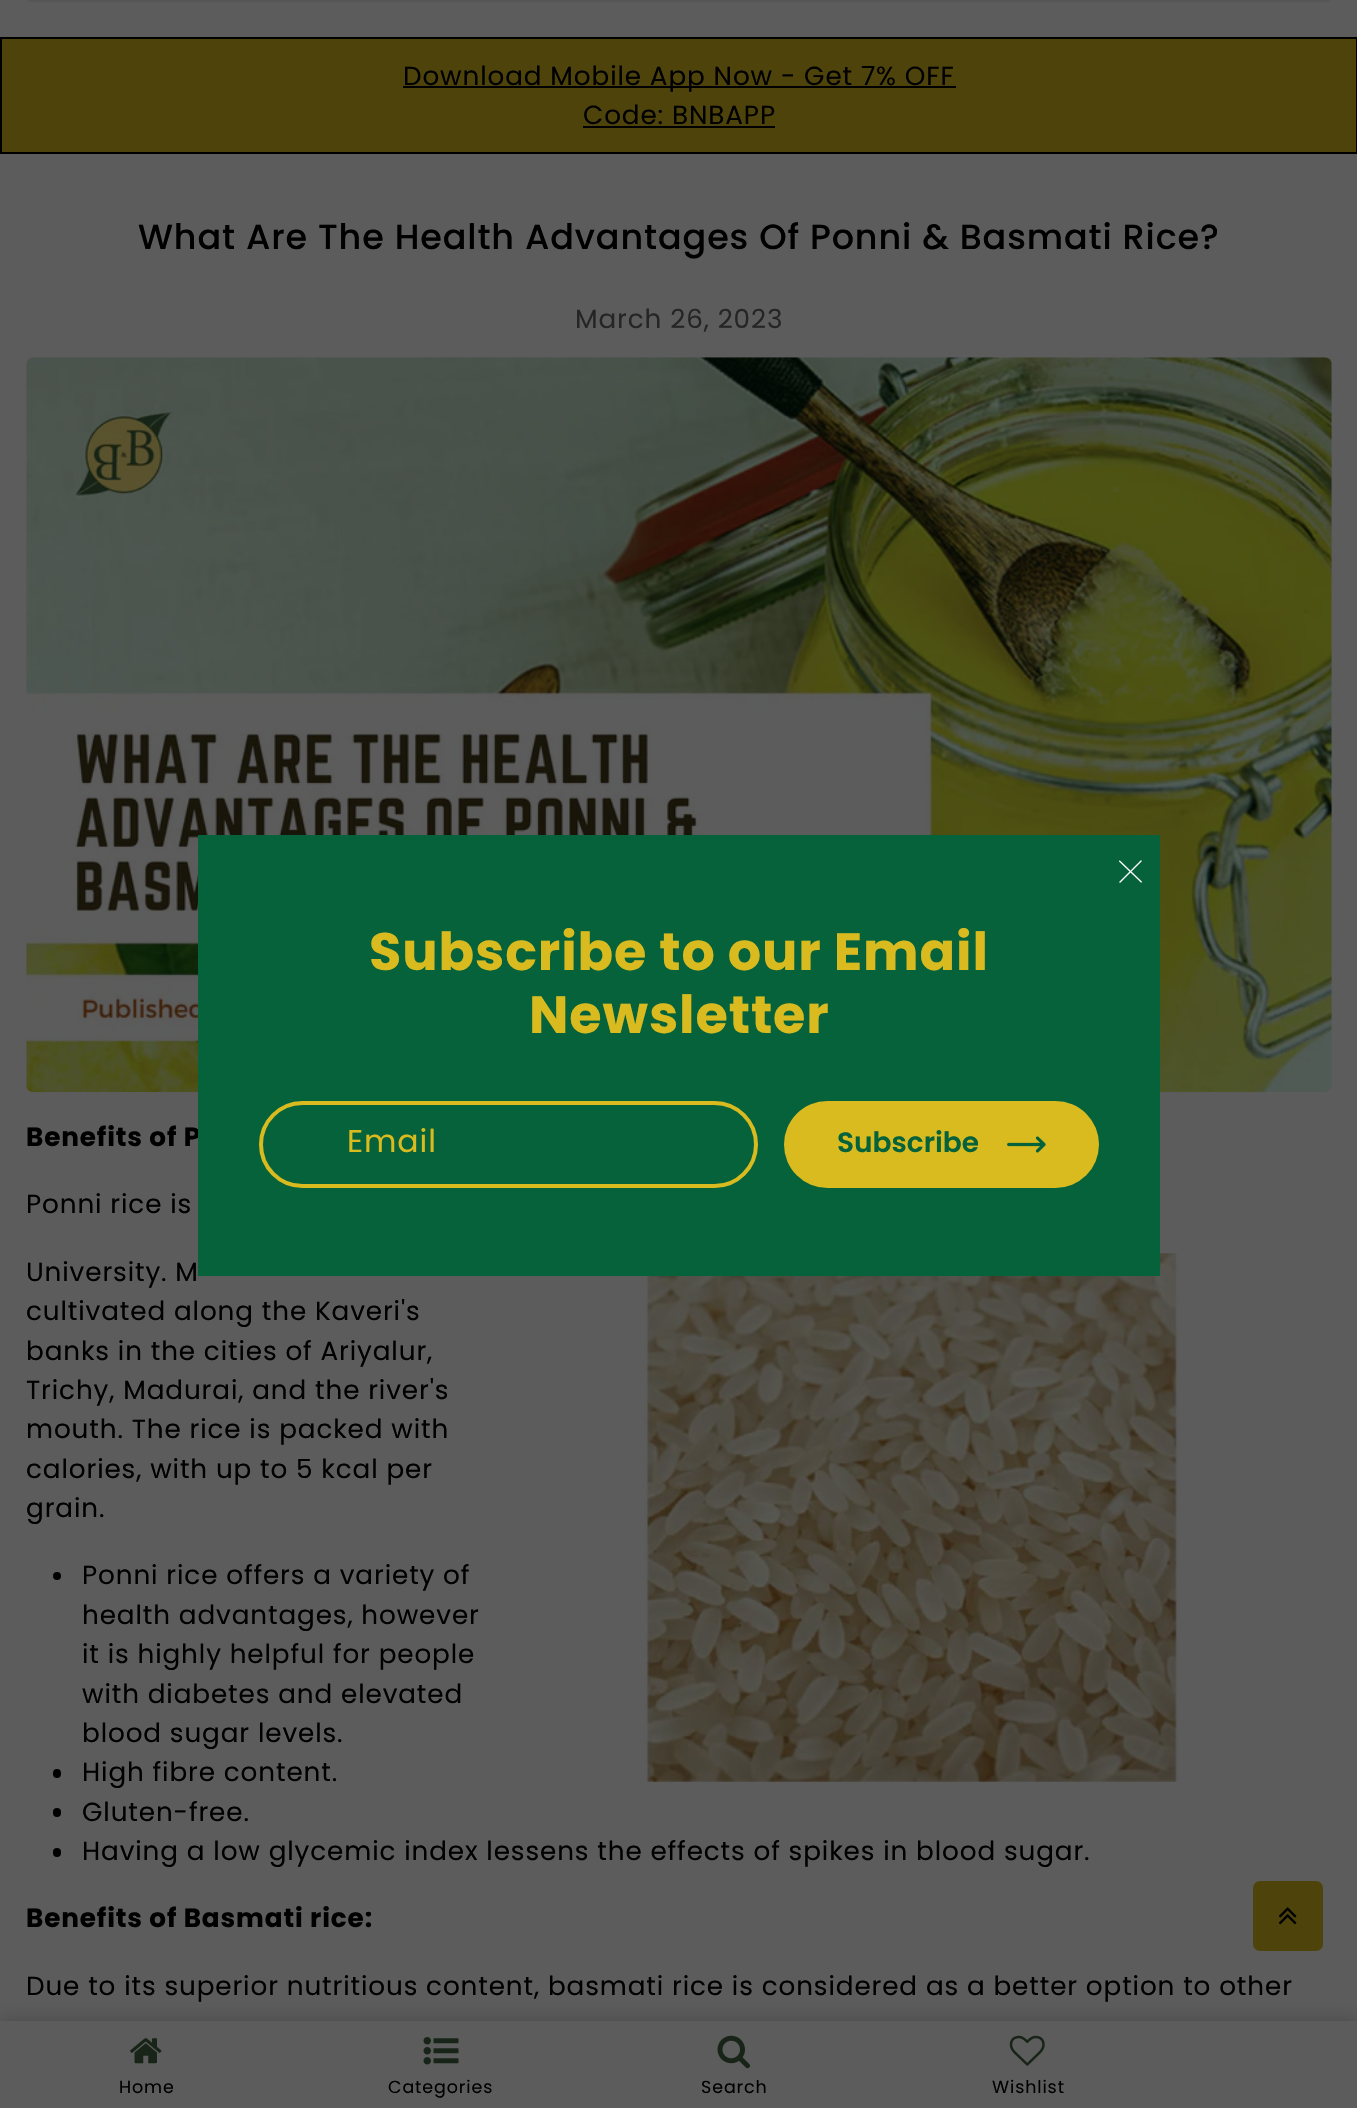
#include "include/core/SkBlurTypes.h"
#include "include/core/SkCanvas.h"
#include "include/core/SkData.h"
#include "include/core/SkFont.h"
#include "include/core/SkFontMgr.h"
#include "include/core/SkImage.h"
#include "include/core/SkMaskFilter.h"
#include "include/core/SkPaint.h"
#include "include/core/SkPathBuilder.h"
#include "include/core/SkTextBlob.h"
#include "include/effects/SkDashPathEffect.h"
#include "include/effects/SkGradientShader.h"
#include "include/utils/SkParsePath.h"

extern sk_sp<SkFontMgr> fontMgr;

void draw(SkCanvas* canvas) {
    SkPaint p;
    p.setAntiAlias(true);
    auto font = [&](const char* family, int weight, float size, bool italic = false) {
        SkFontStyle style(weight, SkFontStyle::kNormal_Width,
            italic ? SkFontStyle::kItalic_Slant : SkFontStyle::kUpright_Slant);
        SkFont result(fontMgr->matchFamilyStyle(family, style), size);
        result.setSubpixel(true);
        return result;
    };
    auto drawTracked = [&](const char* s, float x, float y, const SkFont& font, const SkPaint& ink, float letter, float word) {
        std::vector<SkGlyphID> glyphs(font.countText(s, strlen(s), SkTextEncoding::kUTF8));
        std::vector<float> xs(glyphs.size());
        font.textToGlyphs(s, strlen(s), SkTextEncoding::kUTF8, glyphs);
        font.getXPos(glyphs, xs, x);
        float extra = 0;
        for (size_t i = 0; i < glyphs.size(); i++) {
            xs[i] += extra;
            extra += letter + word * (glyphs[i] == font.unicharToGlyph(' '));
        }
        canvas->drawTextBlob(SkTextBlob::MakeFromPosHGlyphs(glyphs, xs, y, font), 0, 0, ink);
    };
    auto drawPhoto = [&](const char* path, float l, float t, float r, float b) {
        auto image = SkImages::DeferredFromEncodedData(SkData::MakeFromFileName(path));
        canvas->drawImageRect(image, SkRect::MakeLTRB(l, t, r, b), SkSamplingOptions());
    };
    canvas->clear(0xFF5C5C5C);
    p.setStyle(SkPaint::kStroke_Style);
    p.setStrokeWidth(2);
    p.setColor(0xFF565656);
    canvas->drawRoundRect(SkRect::MakeLTRB(27, -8, 1331, 1), 6, 6, p);
    p.setStyle(SkPaint::kFill_Style);
    p.setColor(0xFF4E430B);
    canvas->drawRect(SkRect::MakeLTRB(1, 38, 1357, 153), p);
    p.setStyle(SkPaint::kStroke_Style);
    p.setColor(0xFF000000);
    canvas->drawRect(SkRect::MakeLTRB(1, 38, 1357, 153), p);
    p.setStyle(SkPaint::kFill_Style);
    canvas->drawRect(SkRect::MakeLTRB(403, 86, 956, 88), p);
    auto font1 = font("Poppins", 400, 26.25f);
    drawTracked("Download Mobile App Now - Get 7% OFF", 403, 85, font1, p, 0.88f, 0);
    drawTracked("Code: BNBAPP", 583, 124, font1, p, 0.88f, 0);
    canvas->drawRect(SkRect::MakeLTRB(583, 126, 775, 128), p);
    auto font2 = font("Poppins", 500, 35);
    drawTracked("What Are The Health Advantages Of Ponni & Basmati Rice?", 138, 249, font2, p, 0.88f, 0);
    p.setColor(0xFF252525);
    drawTracked("March 26, 2023", 575, 328, font1, p, 0.88f, 0);
    drawPhoto("media/1.png", 26, 357, 1332, 1093);
    auto font3 = font("Poppins", 700, 26.25f);
    p.setColor(0xFF000000);
    drawTracked("Benefits of P", 26, 1146, font3, p, 0.88f, 0);
    {
        const struct { const char* s; float x, y; } items[] = {
            {"Ponni rice is", 26, 1213},
            {"University. M", 26, 1281},
            {"cultivated along the Kaveri's", 26, 1320},
            {"banks in the cities of Ariyalur,", 26, 1360},
            {"Trichy, Madurai, and the river's", 26, 1399},
            {"mouth. The rice is packed with", 26, 1438},
            {"calories, with up to 5 kcal per", 26, 1478},
            {"grain.", 26, 1517},
        };
        for (auto [s, x, y] : items) {
            drawTracked(s, x, y, font1, p, 0.88f, 0);
        }
    }
    drawPhoto("media/2.png", 644, 1253, 1179, 1782);
    canvas->drawCircle(57, 1576, 4, p);
    {
        const struct { const char* s; float x, y; } items[] = {
            {"Ponni rice offers a variety of", 82, 1584},
            {"health advantages, however", 82, 1624},
            {"it is highly helpful for people", 82, 1663},
            {"with diabetes and elevated", 82, 1703},
            {"blood sugar levels.", 82, 1742},
        };
        for (auto [s, x, y] : items) {
            drawTracked(s, x, y, font1, p, 0.88f, 0);
        }
    }
    canvas->drawRoundRect(SkRect::MakeLTRB(53, 1769, 61, 1778), 4, 4, p);
    drawTracked("High fibre content.", 82, 1781, font1, p, 0.88f, 0);
    canvas->drawRoundRect(SkRect::MakeLTRB(53, 1808, 61, 1817), 4, 4, p);
    drawTracked("Gluten-free.", 82, 1821, font1, p, 0.88f, 0);
    canvas->drawRoundRect(SkRect::MakeLTRB(53, 1848, 61, 1857), 4, 4, p);
    drawTracked("Having a low glycemic index lessens the effects of spikes in blood sugar.", 82, 1860, font1, p, 0.88f, 0);
    drawTracked("Benefits of Basmati rice:", 26, 1927, font3, p, 0.88f, 0);
    drawTracked("Due to its superior nutritious content, basmati rice is considered as a better option to other", 26, 1995, font1, p, 0.88f, 0);
    p.setColor(0xFF06623B);
    canvas->drawRect(SkRect::MakeLTRB(198, 835, 1160, 1276), p);
    drawPhoto("media/3.png", 1119, 860, 1142, 883);
    auto font4 = font("Poppins", 700, 52.5f);
    p.setColor(0xFFDABB1F);
    drawTracked("Subscribe to our Email", 369, 970, font4, p, 0.88f, 0);
    drawTracked("Newsletter", 529, 1033, font4, p, 0.88f, 0);
    p.setStyle(SkPaint::kStroke_Style);
    p.setStrokeWidth(4);
    canvas->drawRoundRect(SkRect::MakeLTRB(261, 1103, 756, 1186), 41.5f, 41.5f, p);
    auto font5 = font("Poppins", 400, 31.5f);
    p.setStyle(SkPaint::kFill_Style);
    drawTracked("Email", 347, 1152, font5, p, 0.88f, 0);
    canvas->drawRoundRect(SkRect::MakeLTRB(784, 1101, 1099, 1188), 43.5f, 43.5f, p);
    auto font6 = font("Poppins", 600, 28);
    p.setColor(0xFF06623B);
    canvas->drawString("Subscribe", 837, 1152, font6, p);
    drawPhoto("media/4.png", 1007, 1136, 1046, 1153);
    p.setColor(0xFF4E430B);
    canvas->drawRoundRect(SkRect::MakeLTRB(1253, 1881, 1323, 1951), 7, 7, p);
    drawPhoto("media/5.png", 1278, 1907, 1297, 1925);
    p.setColor(0x3B000000);
    p.setMaskFilter(SkMaskFilter::MakeBlur(kNormal_SkBlurStyle, 9));
    canvas->drawRect(SkRect::MakeLTRB(0, 2021, 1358, 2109), p);
    p.setMaskFilter(nullptr);
    p.setColor(0xFF5C5C5C);
    canvas->drawRect(SkRect::MakeLTRB(0, 2021, 1357, 2108), p);
    drawPhoto("media/6.png", 130, 2038, 162, 2064);
    auto font7 = font("Poppins", 400, 17.5f);
    p.setColor(0xFF000000);
    drawTracked("Home", 119, 2093, font7, p, 0.88f, 0);
    drawPhoto("media/7.png", 423, 2037, 459, 2065);
    drawTracked("Categories", 388, 2093, font7, p, 0.88f, 0);
    drawPhoto("media/8.png", 717, 2035, 750, 2069);
    drawTracked("Search", 701, 2093, font7, p, 0.88f, 0);
    drawPhoto("media/9.png", 1009, 2035, 1045, 2066);
    drawTracked("Wishlist", 992, 2093, font7, p, 0.88f, 0);
}
